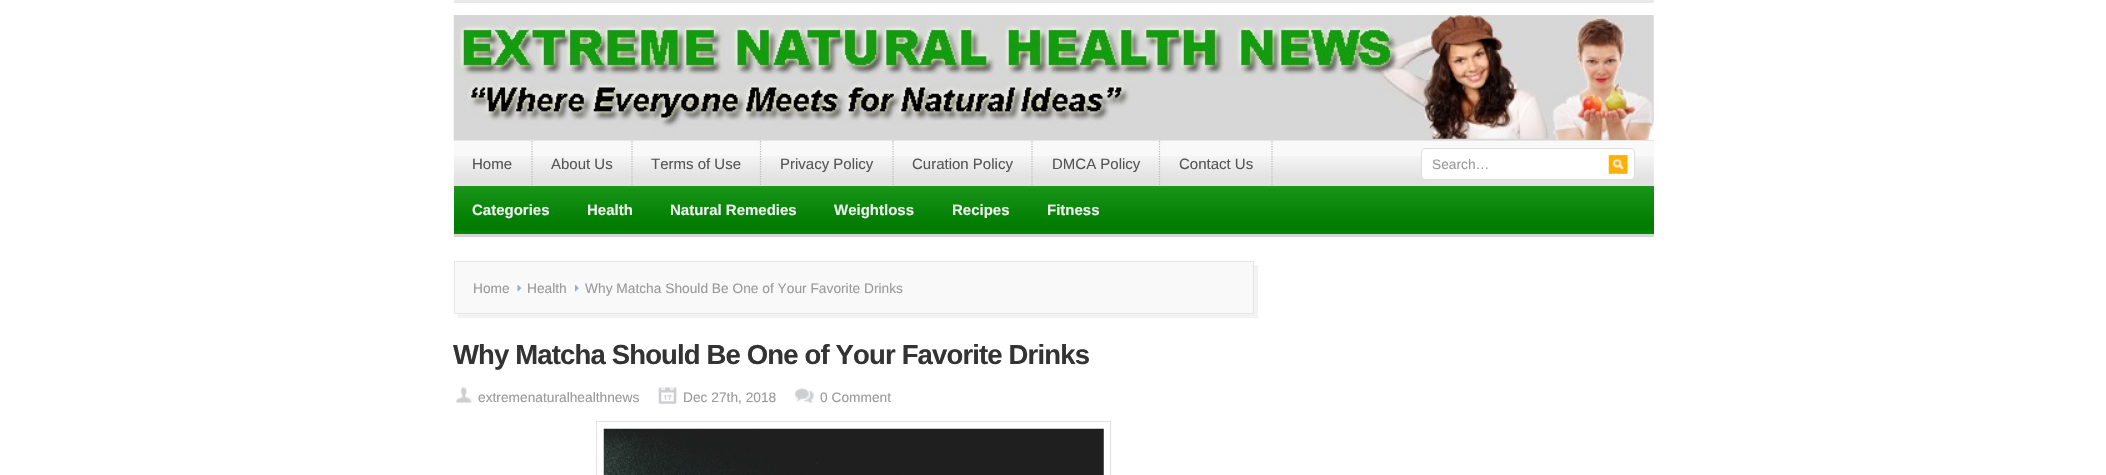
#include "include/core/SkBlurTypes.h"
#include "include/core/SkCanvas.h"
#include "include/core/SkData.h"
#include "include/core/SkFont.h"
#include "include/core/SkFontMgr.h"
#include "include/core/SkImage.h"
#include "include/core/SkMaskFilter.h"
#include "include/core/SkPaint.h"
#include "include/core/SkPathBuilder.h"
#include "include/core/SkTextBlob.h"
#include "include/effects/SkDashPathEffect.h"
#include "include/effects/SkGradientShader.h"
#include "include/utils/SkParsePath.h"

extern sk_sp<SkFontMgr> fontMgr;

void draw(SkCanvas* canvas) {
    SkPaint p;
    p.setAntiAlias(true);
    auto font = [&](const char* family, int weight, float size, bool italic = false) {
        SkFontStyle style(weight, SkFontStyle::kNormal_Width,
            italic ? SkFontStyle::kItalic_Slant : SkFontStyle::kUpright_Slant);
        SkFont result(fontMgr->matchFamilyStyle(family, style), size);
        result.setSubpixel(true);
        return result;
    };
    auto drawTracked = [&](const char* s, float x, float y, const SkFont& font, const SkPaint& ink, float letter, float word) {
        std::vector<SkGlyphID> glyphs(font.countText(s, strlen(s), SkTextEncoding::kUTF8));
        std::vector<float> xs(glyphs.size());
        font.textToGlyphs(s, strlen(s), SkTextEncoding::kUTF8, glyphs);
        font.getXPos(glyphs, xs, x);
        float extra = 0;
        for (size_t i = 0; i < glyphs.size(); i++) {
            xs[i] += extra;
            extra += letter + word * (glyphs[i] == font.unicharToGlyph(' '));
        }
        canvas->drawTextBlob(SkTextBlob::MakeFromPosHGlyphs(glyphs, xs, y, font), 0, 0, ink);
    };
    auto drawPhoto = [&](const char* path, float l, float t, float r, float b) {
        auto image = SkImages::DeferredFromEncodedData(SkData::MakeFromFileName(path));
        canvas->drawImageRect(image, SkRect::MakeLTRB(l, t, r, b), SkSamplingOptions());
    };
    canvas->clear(0xFFFFFFFF);
    p.setColor(0xFFE9E9E9);
    canvas->drawRect(SkRect::MakeLTRB(454, 0, 1654, 3), p);
    p.setColor(0xFFE6E6E6);
    canvas->drawRect(SkRect::MakeLTRB(454, 140, 1654, 141), p);
    drawPhoto("media/1.png", 453, 15, 1654, 140);
    p.setColor(0xFFF9F9F9);
    canvas->drawRect(SkRect::MakeLTRB(454, 141, 1654, 186), p);
    drawPhoto("media/2.png", 453, 156, 1654, 186);
    p.setStyle(SkPaint::kStroke_Style);
    p.setStrokeWidth(1.2f);
    p.setColor(0xFFBBBBBB);
    p.setPathEffect(SkDashPathEffect::Make({{1.25f, 1.25f}}, 0));
    canvas->drawPath(SkPathBuilder().moveTo(532, 141).lineTo(532, 186).detach(), p);
    p.setPathEffect(nullptr);
    auto font1 = font("Liberation Sans", 400, 15);
    p.setStyle(SkPaint::kFill_Style);
    p.setColor(0xFF555555);
    canvas->drawString("Home", 472, 169, font1, p);
    p.setStyle(SkPaint::kStroke_Style);
    p.setColor(0xFFBBBBBB);
    p.setPathEffect(SkDashPathEffect::Make({{1.25f, 1.25f}}, 0));
    canvas->drawPath(SkPathBuilder().moveTo(632, 141).lineTo(632, 186).detach(), p);
    p.setPathEffect(nullptr);
    p.setStyle(SkPaint::kFill_Style);
    p.setColor(0xFF555555);
    canvas->drawString("About Us", 551, 169, font1, p);
    p.setStyle(SkPaint::kStroke_Style);
    p.setColor(0xFFBBBBBB);
    p.setPathEffect(SkDashPathEffect::Make({{1.25f, 1.25f}}, 0));
    canvas->drawPath(SkPathBuilder().moveTo(760.5f, 141).lineTo(760.5f, 186).detach(), p);
    p.setPathEffect(nullptr);
    p.setStyle(SkPaint::kFill_Style);
    p.setColor(0xFF555555);
    canvas->drawString("Terms of Use", 651, 169, font1, p);
    p.setStyle(SkPaint::kStroke_Style);
    p.setColor(0xFFBBBBBB);
    p.setPathEffect(SkDashPathEffect::Make({{1.25f, 1.25f}}, 0));
    canvas->drawPath(SkPathBuilder().moveTo(893, 141).lineTo(893, 186).detach(), p);
    p.setPathEffect(nullptr);
    p.setStyle(SkPaint::kFill_Style);
    p.setColor(0xFF555555);
    canvas->drawString("Privacy Policy", 780, 169, font1, p);
    p.setStyle(SkPaint::kStroke_Style);
    p.setColor(0xFFBBBBBB);
    p.setPathEffect(SkDashPathEffect::Make({{1.25f, 1.25f}}, 0));
    canvas->drawPath(SkPathBuilder().moveTo(1032, 141).lineTo(1032, 186).detach(), p);
    p.setPathEffect(nullptr);
    p.setStyle(SkPaint::kFill_Style);
    p.setColor(0xFF555555);
    canvas->drawString("Curation Policy", 912, 169, font1, p);
    p.setStyle(SkPaint::kStroke_Style);
    p.setColor(0xFFBBBBBB);
    p.setPathEffect(SkDashPathEffect::Make({{1.25f, 1.25f}}, 0));
    canvas->drawPath(SkPathBuilder().moveTo(1159.5f, 141).lineTo(1159.5f, 186).detach(), p);
    p.setPathEffect(nullptr);
    p.setStyle(SkPaint::kFill_Style);
    p.setColor(0xFF555555);
    canvas->drawString("DMCA Policy", 1052, 169, font1, p);
    p.setStyle(SkPaint::kStroke_Style);
    p.setColor(0xFFBBBBBB);
    p.setPathEffect(SkDashPathEffect::Make({{1.25f, 1.25f}}, 0));
    canvas->drawPath(SkPathBuilder().moveTo(1272, 141).lineTo(1272, 186).detach(), p);
    p.setPathEffect(nullptr);
    p.setStyle(SkPaint::kFill_Style);
    p.setColor(0xFF555555);
    canvas->drawString("Contact Us", 1179, 169, font1, p);
    p.setColor(0xFFFFFFFF);
    canvas->drawRoundRect(SkRect::MakeLTRB(1421.5f, 148.5f, 1634.5f, 179.5f), 3.5f, 3.5f, p);
    p.setStyle(SkPaint::kStroke_Style);
    p.setStrokeWidth(1);
    p.setColor(0xFFDDDDDD);
    canvas->drawRoundRect(SkRect::MakeLTRB(1421.5f, 148.5f, 1634.5f, 179.5f), 3.5f, 3.5f, p);
    auto font2 = font("Liberation Sans", 400, 13.75f);
    p.setStyle(SkPaint::kFill_Style);
    p.setColor(0xFF999999);
    canvas->drawString("Search…", 1432, 169, font2, p);
    drawPhoto("media/3.png", 1608, 154, 1628, 174);
    p.setColor(0xFF008800);
    canvas->drawRect(SkRect::MakeLTRB(454, 186, 1654, 234), p);
    drawPhoto("media/4.png", 453, 186, 1654, 231);
    p.setColor(0xFFD5D5D5);
    canvas->drawRect(SkRect::MakeLTRB(454, 234, 1654, 237), p);
    auto font3 = font("Liberation Sans", 700, 15);
    p.setColor(0xFFEEEEEE);
    {
        const struct { const char* s; float x, y; } items[] = {
            {"Categories", 472, 215},
            {"Health", 587, 215},
            {"Natural Remedies", 670, 215},
            {"Weightloss", 834, 215},
            {"Recipes", 952, 215},
            {"Fitness", 1047, 215},
        };
        for (auto [s, x, y] : items) {
            canvas->drawString(s, x, y, font3, p);
        }
    }
    p.setColor(0xFFF3F3F3);
    canvas->drawPath(SkPathBuilder().moveTo(458, 314).lineTo(458, 318).lineTo(1258, 318).lineTo(1258, 265).lineTo(1254, 265).lineTo(1254, 314).close().detach(), p);
    p.setColor(0xFFF9F9F9);
    canvas->drawRect(SkRect::MakeLTRB(454.5f, 261.5f, 1253.5f, 313.5f), p);
    p.setStyle(SkPaint::kStroke_Style);
    p.setColor(0xFFE6E6E6);
    canvas->drawRect(SkRect::MakeLTRB(454.5f, 261.5f, 1253.5f, 313.5f), p);
    p.setStyle(SkPaint::kFill_Style);
    p.setColor(0xFF999999);
    canvas->drawString("Home", 473, 293, font2, p);
    drawPhoto("media/5.png", 517, 285, 522, 292);
    canvas->drawString("Health", 527, 293, font2, p);
    drawPhoto("media/6.png", 575, 284, 579, 292);
    canvas->drawString("Why Matcha Should Be One of Your Favorite Drinks", 585, 293, font2, p);
    auto font4 = font("Liberation Sans", 700, 27.5f);
    p.setColor(0xFF333333);
    drawTracked("Why Matcha Should Be One of Your Favorite Drinks", 453, 364, font4, p, -0.85f, 0);
    drawPhoto("media/7.png", 456, 387, 472, 403);
    p.setColor(0xFF999999);
    canvas->drawString("extremenaturalhealthnews", 478, 402, font2, p);
    drawPhoto("media/8.png", 658, 387, 677, 404);
    canvas->drawString("Dec 27th, 2018", 683, 402, font2, p);
    drawPhoto("media/9.png", 795, 388, 814, 403);
    canvas->drawString("0 Comment", 820, 402, font2, p);
    p.setStyle(SkPaint::kStroke_Style);
    p.setColor(0xFFE2E2E2);
    canvas->drawRect(SkRect::MakeLTRB(596.5f, 421.5f, 1110.5f, 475.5f), p);
    drawPhoto("media/10.png", 603, 428, 1104, 475);
}
